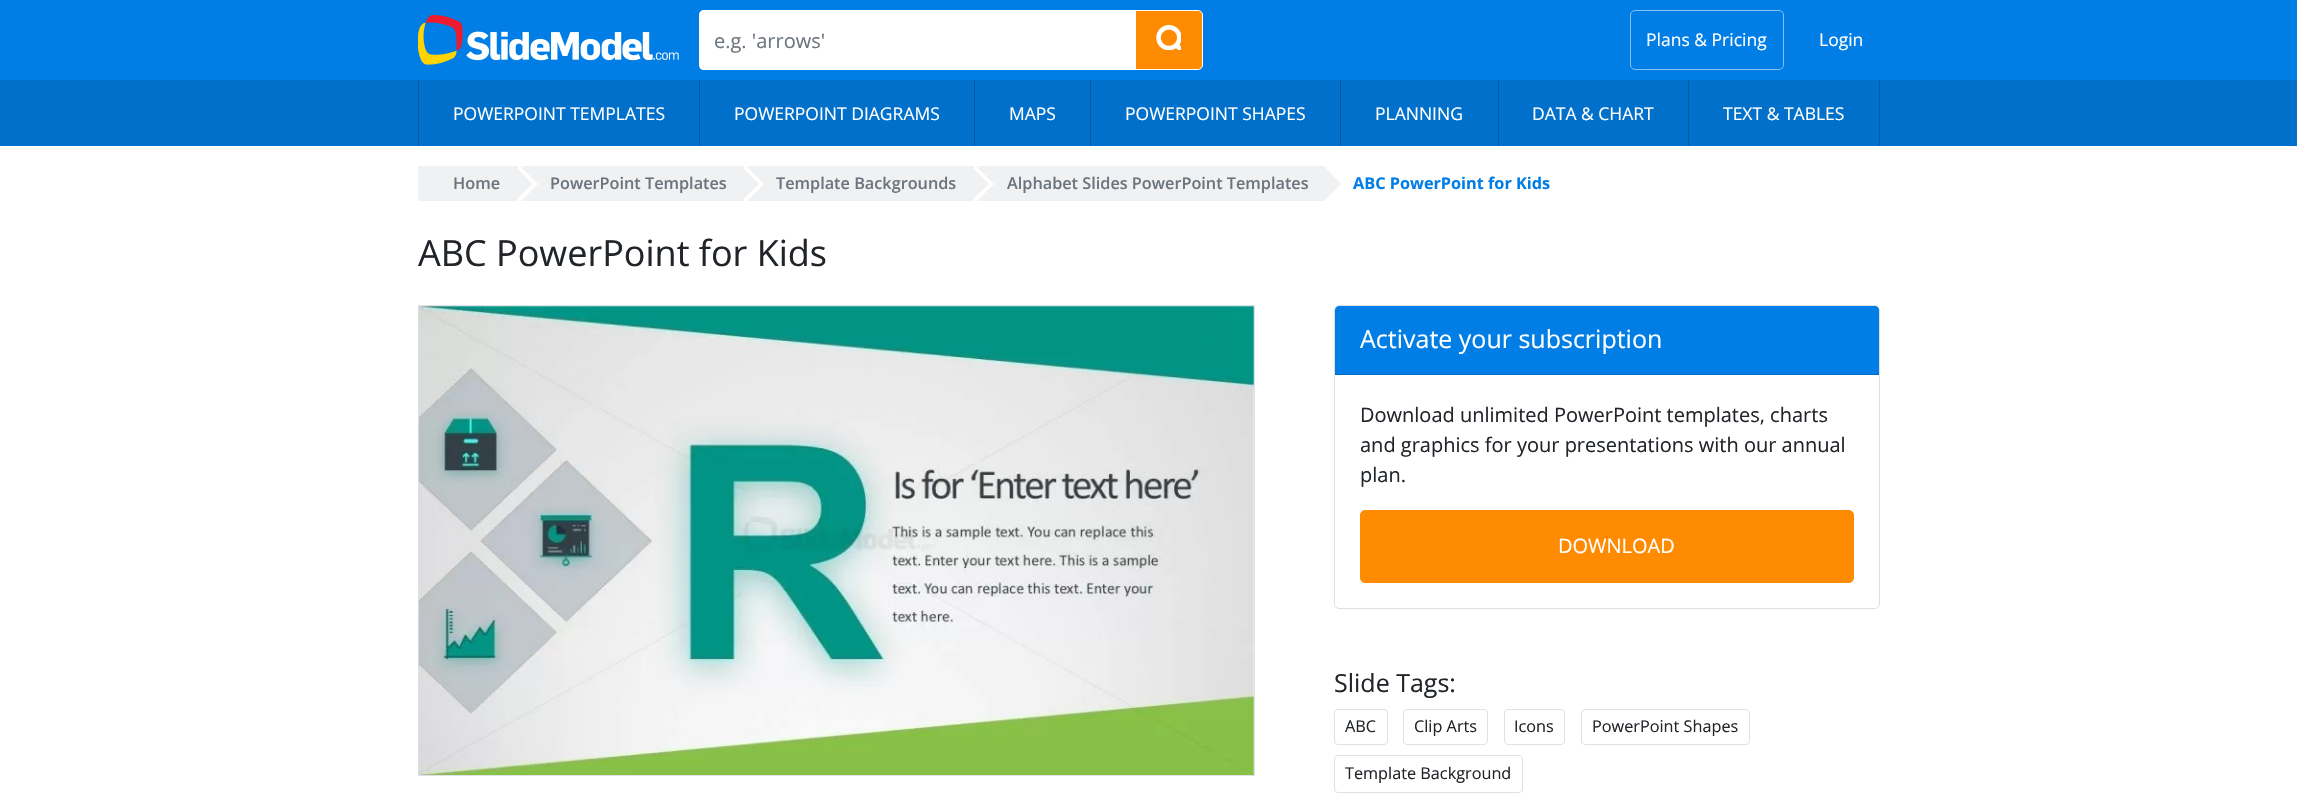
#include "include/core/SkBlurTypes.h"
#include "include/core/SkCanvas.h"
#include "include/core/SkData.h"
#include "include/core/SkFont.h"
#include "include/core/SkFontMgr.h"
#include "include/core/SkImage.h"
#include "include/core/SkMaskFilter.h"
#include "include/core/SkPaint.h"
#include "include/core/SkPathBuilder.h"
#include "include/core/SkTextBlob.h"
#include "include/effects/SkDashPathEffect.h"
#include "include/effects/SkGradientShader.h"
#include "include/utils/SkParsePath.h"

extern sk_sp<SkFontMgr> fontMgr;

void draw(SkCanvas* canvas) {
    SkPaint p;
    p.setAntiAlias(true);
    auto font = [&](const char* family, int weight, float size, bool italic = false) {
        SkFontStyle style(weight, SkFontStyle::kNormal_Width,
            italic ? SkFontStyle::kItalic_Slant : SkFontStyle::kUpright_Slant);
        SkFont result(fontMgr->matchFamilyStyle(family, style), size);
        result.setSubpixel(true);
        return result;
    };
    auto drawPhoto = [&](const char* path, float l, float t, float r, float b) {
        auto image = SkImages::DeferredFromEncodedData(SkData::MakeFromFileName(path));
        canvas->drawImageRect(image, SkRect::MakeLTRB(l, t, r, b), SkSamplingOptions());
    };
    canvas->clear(0xFFFFFFFF);
    p.setColor(0xFF007EE5);
    canvas->drawRect(SkRect::MakeLTRB(0, 0, 2297, 80), p);
    drawPhoto("media/1.png", 418, 15, 679, 65);
    p.setColor(0xFFFFFFFF);
    canvas->drawPath(SkPathBuilder().moveTo(704, 10).lineTo(1136, 10).lineTo(1136, 70).lineTo(704, 70).cubicTo(701, 70, 699, 68, 699, 65).lineTo(699, 15).cubicTo(699, 12, 701, 10, 704, 10).close().detach(), p);
    auto font1 = font("Open Sans", 400, 20);
    p.setColor(0xFF6C757D);
    canvas->drawString("e.g. 'arrows'", 714, 48, font1, p);
    p.setColor(0xFFFF8B03);
    canvas->drawPath(SkPathBuilder().moveTo(1135.5f, 10.5f).lineTo(1198, 10.5f).cubicTo(1200.5f, 10.5f, 1202.5f, 12.5f, 1202.5f, 15).lineTo(1202.5f, 65).cubicTo(1202.5f, 67.5f, 1200.5f, 69.5f, 1198, 69.5f).lineTo(1135.5f, 69.5f).close().detach(), p);
    p.setStyle(SkPaint::kStroke_Style);
    p.setStrokeWidth(1);
    p.setColor(0xFFFFFFFF);
    canvas->drawPath(SkPathBuilder().moveTo(1135.5f, 10.5f).lineTo(1198, 10.5f).cubicTo(1200.5f, 10.5f, 1202.5f, 12.5f, 1202.5f, 15).lineTo(1202.5f, 65).cubicTo(1202.5f, 67.5f, 1200.5f, 69.5f, 1198, 69.5f).lineTo(1135.5f, 69.5f).close().detach(), p);
    drawPhoto("media/2.png", 1156, 25, 1181, 50);
    p.setColor(0xFF82C0F2);
    canvas->drawRoundRect(SkRect::MakeLTRB(1630.5f, 10.5f, 1783.5f, 69.5f), 4.5f, 4.5f, p);
    auto font2 = font("Open Sans", 400, 17.5f);
    p.setStyle(SkPaint::kFill_Style);
    p.setColor(0xFFFFFFFF);
    canvas->drawString("Plans & Pricing", 1646, 46, font2, p);
    canvas->drawString("Login", 1819, 46, font2, p);
    p.setColor(0xFF0070CB);
    canvas->drawRect(SkRect::MakeLTRB(0, 80, 2297, 146), p);
    p.setColor(0xFF005AA2);
    canvas->drawRect(SkRect::MakeLTRB(418, 80, 419, 146), p);
    p.setColor(0xFFFFFFFF);
    canvas->drawString("POWERPOINT TEMPLATES", 453, 120, font2, p);
    p.setColor(0xFF005AA2);
    canvas->drawRect(SkRect::MakeLTRB(699, 80, 700, 146), p);
    p.setColor(0xFFFFFFFF);
    canvas->drawString("POWERPOINT DIAGRAMS", 734, 120, font2, p);
    p.setColor(0xFF005AA2);
    canvas->drawRect(SkRect::MakeLTRB(974, 80, 975, 146), p);
    p.setColor(0xFFFFFFFF);
    canvas->drawString("MAPS", 1009, 120, font2, p);
    p.setColor(0xFF005AA2);
    canvas->drawRect(SkRect::MakeLTRB(1090, 80, 1091, 146), p);
    p.setColor(0xFFFFFFFF);
    canvas->drawString("POWERPOINT SHAPES", 1125, 120, font2, p);
    p.setColor(0xFF005AA2);
    canvas->drawRect(SkRect::MakeLTRB(1340, 80, 1341, 146), p);
    p.setColor(0xFFFFFFFF);
    canvas->drawString("PLANNING", 1375, 120, font2, p);
    p.setColor(0xFF005AA2);
    canvas->drawRect(SkRect::MakeLTRB(1498, 80, 1499, 146), p);
    p.setColor(0xFFFFFFFF);
    canvas->drawString("DATA & CHART", 1532, 120, font2, p);
    p.setColor(0xFF005AA2);
    canvas->drawRect(SkRect::MakeLTRB(1879, 80, 1880, 146), p);
    canvas->drawRect(SkRect::MakeLTRB(1688, 80, 1689, 146), p);
    p.setColor(0xFFFFFFFF);
    canvas->drawString("TEXT & TABLES", 1723, 120, font2, p);
    p.setColor(0xFFEFF1F3);
    canvas->drawRect(SkRect::MakeLTRB(418, 166, 1324, 201), p);
    p.setColor(0xFFFFFFFF);
    canvas->drawPath(SkPathBuilder().moveTo(518, 204).lineTo(518, 164).lineTo(538, 184).close().detach(), p);
    auto font3 = font("Open Sans", 600, 16.25f);
    p.setColor(0xFF6C757D);
    canvas->drawString("Home", 453, 189, font3, p);
    p.setColor(0xFFEFF1F3);
    canvas->drawPath(SkPathBuilder().moveTo(515, 201).lineTo(515, 166).lineTo(532.5f, 184).close().detach(), p);
    p.setColor(0xFFFFFFFF);
    canvas->drawPath(SkPathBuilder().moveTo(744, 204).lineTo(744, 164).lineTo(764, 184).close().detach(), p);
    p.setColor(0xFF6C757D);
    canvas->drawString("PowerPoint Templates", 550, 189, font3, p);
    p.setColor(0xFFEFF1F3);
    canvas->drawPath(SkPathBuilder().moveTo(741, 201).lineTo(741, 166).lineTo(759, 184).close().detach(), p);
    p.setColor(0xFFFFFFFF);
    canvas->drawPath(SkPathBuilder().moveTo(974, 204).lineTo(974, 164).lineTo(994, 184).close().detach(), p);
    p.setColor(0xFF6C757D);
    canvas->drawString("Template Backgrounds", 776, 189, font3, p);
    p.setColor(0xFFEFF1F3);
    canvas->drawPath(SkPathBuilder().moveTo(971, 201).lineTo(971, 166).lineTo(989, 184).close().detach(), p);
    p.setColor(0xFF6C757D);
    canvas->drawString("Alphabet Slides PowerPoint Templates", 1007, 189, font3, p);
    p.setColor(0xFFEFF1F3);
    canvas->drawPath(SkPathBuilder().moveTo(1324, 201).lineTo(1324, 166).lineTo(1341, 184).close().detach(), p);
    auto font4 = font("Open Sans", 700, 16.25f);
    p.setColor(0xFF007EE5);
    canvas->drawString("ABC PowerPoint for Kids", 1353, 189, font4, p);
    auto font5 = font("Open Sans", 400, 36);
    p.setColor(0xFF212529);
    canvas->drawString("ABC PowerPoint for Kids", 418, 266, font5, p);
    p.setStyle(SkPaint::kStroke_Style);
    p.setColor(0xFFDEE2E6);
    canvas->drawRect(SkRect::MakeLTRB(418.5f, 305.5f, 1254.5f, 775.5f), p);
    drawPhoto("media/3.png", 418, 306, 1254, 775);
    p.setColor(0xFFDFDFDF);
    canvas->drawRoundRect(SkRect::MakeLTRB(1334.5f, 305.5f, 1879.5f, 608.5f), 4.5f, 4.5f, p);
    p.setStyle(SkPaint::kFill_Style);
    p.setColor(0xFF007EE5);
    canvas->drawPath(SkPathBuilder().moveTo(1339, 306).lineTo(1875, 306).cubicTo(1877, 306, 1879, 308, 1879, 310).lineTo(1879, 375).lineTo(1335, 375).lineTo(1335, 310).cubicTo(1335, 308, 1337, 306, 1339, 306).close().detach(), p);
    p.setColor(0xFF006EC8);
    canvas->drawRect(SkRect::MakeLTRB(1335, 374, 1879, 375), p);
    auto font6 = font("Open Sans", 400, 25);
    p.setColor(0xFFFFFFFF);
    canvas->drawString("Activate your subscription", 1360, 348, font6, p);
    p.setColor(0xFF212529);
    {
        const struct { const char* s; float x, y; } items[] = {
            {"Download unlimited PowerPoint templates, charts", 1360, 422},
            {"and graphics for your presentations with our annual", 1360, 452},
            {"plan.", 1360, 482},
        };
        for (auto [s, x, y] : items) {
            canvas->drawString(s, x, y, font1, p);
        }
    }
    p.setColor(0xFFFF8B03);
    canvas->drawRoundRect(SkRect::MakeLTRB(1360.5f, 510.5f, 1853.5f, 582.5f), 4.5f, 4.5f, p);
    p.setStyle(SkPaint::kStroke_Style);
    canvas->drawRoundRect(SkRect::MakeLTRB(1360.5f, 510.5f, 1853.5f, 582.5f), 4.5f, 4.5f, p);
    p.setStyle(SkPaint::kFill_Style);
    p.setColor(0xFFFFFFFF);
    canvas->drawString("DOWNLOAD", 1558, 553, font1, p);
    p.setColor(0xFF212529);
    canvas->drawString("Slide Tags:", 1334, 692, font6, p);
    p.setStyle(SkPaint::kStroke_Style);
    p.setColor(0xFFDEE2E6);
    canvas->drawRoundRect(SkRect::MakeLTRB(1334.5f, 709.5f, 1387.5f, 744.5f), 3.5f, 3.5f, p);
    auto font7 = font("Open Sans", 400, 16.25f);
    p.setStyle(SkPaint::kFill_Style);
    p.setColor(0xFF212529);
    canvas->drawString("ABC", 1345, 732, font7, p);
    p.setStyle(SkPaint::kStroke_Style);
    p.setColor(0xFFDEE2E6);
    canvas->drawRoundRect(SkRect::MakeLTRB(1403.5f, 709.5f, 1487.5f, 744.5f), 3.5f, 3.5f, p);
    p.setStyle(SkPaint::kFill_Style);
    p.setColor(0xFF212529);
    canvas->drawString("Clip Arts", 1414, 732, font7, p);
    p.setStyle(SkPaint::kStroke_Style);
    p.setColor(0xFFDEE2E6);
    canvas->drawRoundRect(SkRect::MakeLTRB(1504.5f, 709.5f, 1564.5f, 744.5f), 3.5f, 3.5f, p);
    p.setStyle(SkPaint::kFill_Style);
    p.setColor(0xFF212529);
    canvas->drawString("Icons", 1514, 732, font7, p);
    p.setStyle(SkPaint::kStroke_Style);
    p.setColor(0xFFDEE2E6);
    canvas->drawRoundRect(SkRect::MakeLTRB(1581.5f, 709.5f, 1749.5f, 744.5f), 3.5f, 3.5f, p);
    p.setStyle(SkPaint::kFill_Style);
    p.setColor(0xFF212529);
    canvas->drawString("PowerPoint Shapes", 1592, 732, font7, p);
    p.setStyle(SkPaint::kStroke_Style);
    p.setColor(0xFFDEE2E6);
    canvas->drawRoundRect(SkRect::MakeLTRB(1334.5f, 755.5f, 1522.5f, 792.5f), 3.5f, 3.5f, p);
    p.setStyle(SkPaint::kFill_Style);
    p.setColor(0xFF212529);
    canvas->drawString("Template Background", 1345, 779, font7, p);
}
